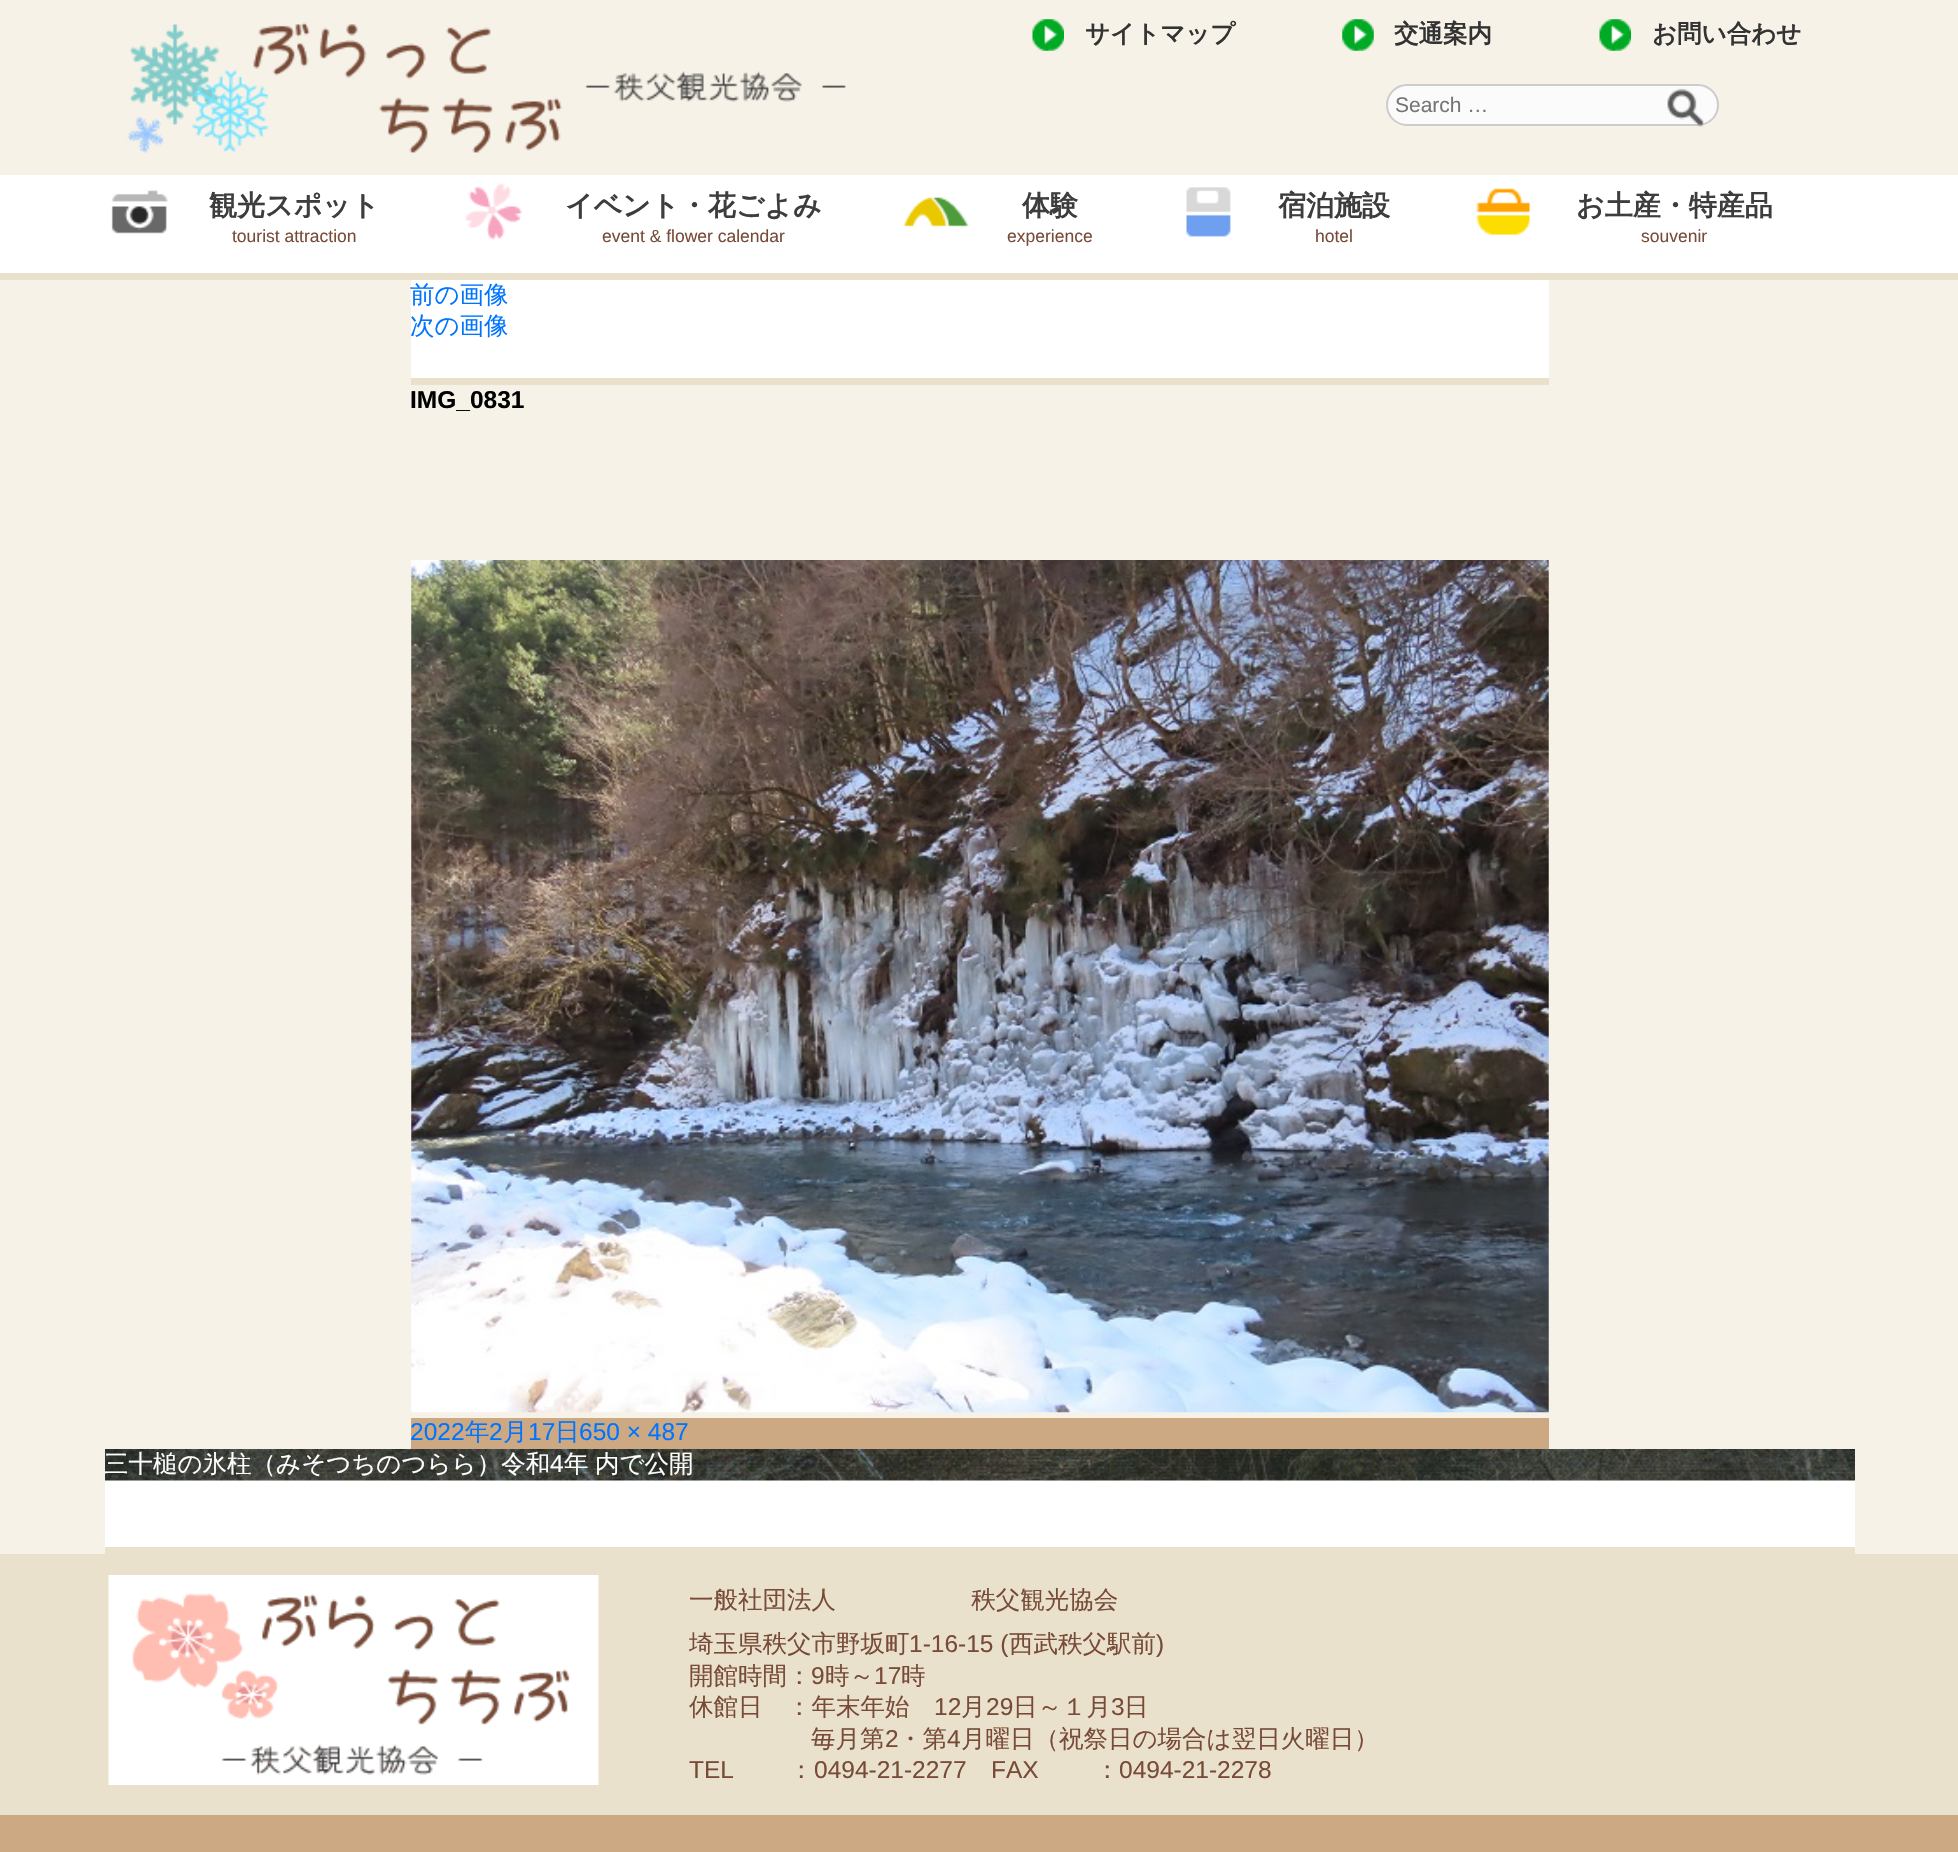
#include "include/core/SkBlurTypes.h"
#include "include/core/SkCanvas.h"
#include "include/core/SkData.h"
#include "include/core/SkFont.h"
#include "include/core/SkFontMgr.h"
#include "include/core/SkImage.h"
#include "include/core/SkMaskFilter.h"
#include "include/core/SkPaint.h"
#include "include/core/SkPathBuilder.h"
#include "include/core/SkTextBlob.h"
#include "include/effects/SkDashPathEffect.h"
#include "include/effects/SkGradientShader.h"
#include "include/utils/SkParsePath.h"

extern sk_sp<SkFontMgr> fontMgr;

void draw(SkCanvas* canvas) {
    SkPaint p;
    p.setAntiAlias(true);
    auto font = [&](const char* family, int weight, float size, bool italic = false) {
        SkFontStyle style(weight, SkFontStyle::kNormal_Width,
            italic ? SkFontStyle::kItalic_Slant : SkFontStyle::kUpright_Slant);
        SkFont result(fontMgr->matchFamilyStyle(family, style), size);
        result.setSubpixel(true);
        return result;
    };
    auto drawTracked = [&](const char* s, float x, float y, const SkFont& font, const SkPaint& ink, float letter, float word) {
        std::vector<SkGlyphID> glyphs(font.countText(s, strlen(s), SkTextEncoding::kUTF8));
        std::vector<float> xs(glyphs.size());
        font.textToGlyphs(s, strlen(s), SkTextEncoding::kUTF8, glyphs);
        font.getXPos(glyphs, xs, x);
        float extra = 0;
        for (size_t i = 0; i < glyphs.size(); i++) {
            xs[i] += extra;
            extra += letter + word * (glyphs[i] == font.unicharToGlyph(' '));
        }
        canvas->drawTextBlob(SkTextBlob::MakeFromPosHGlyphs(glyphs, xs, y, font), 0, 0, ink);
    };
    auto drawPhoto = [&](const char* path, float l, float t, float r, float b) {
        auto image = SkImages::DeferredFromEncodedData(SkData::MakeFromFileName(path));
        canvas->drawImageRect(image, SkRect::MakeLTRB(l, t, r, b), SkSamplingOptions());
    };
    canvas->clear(0xFFF7F2E8);
    drawPhoto("media/1.png", 127, 22, 846, 153);
    drawPhoto("media/2.png", 1032, 19, 1064, 51);
    auto font1 = font("WenQuanYi Zen Hei", 700, 24.5f);
    p.setColor(0xFF333333);
    canvas->drawString("サイトマップ", 1085, 42, font1, p);
    drawPhoto("media/3.png", 1342, 19, 1374, 51);
    canvas->drawString("交通案内", 1394, 42, font1, p);
    drawPhoto("media/4.png", 1599, 19, 1631, 51);
    canvas->drawString("お問い合わせ", 1652, 42, font1, p);
    p.setColor(0xFFFBFBFB);
    canvas->drawRoundRect(SkRect::MakeLTRB(1387, 85, 1718, 125), 20, 20, p);
    p.setStyle(SkPaint::kStroke_Style);
    p.setStrokeWidth(2);
    p.setColor(0xFFCCCCCC);
    canvas->drawRoundRect(SkRect::MakeLTRB(1387, 85, 1718, 125), 20, 20, p);
    auto font2 = font("Liberation Sans", 400, 21);
    p.setStyle(SkPaint::kFill_Style);
    p.setColor(0xFF757575);
    canvas->drawString("Search …", 1395, 112, font2, p);
    drawPhoto("media/5.png", 1667, 88, 1704, 127);
    p.setColor(0xFFFFFFFF);
    canvas->drawRect(SkRect::MakeLTRB(0, 175, 1958, 273), p);
    p.setColor(0xFFEAE1CC);
    canvas->drawRect(SkRect::MakeLTRB(0, 273, 1958, 280), p);
    drawPhoto("media/6.png", 111, 190, 169, 234);
    auto font3 = font("WenQuanYi Zen Hei", 700, 28);
    p.setColor(0xFF3D3D3D);
    canvas->drawString("観光スポット", 209, 215, font3, p);
    auto font4 = font("Liberation Sans", 400, 17.5f);
    p.setColor(0xFF774B38);
    canvas->drawString("tourist attraction", 232, 242, font4, p);
    drawPhoto("media/7.png", 465, 183, 522, 240);
    p.setColor(0xFF3D3D3D);
    canvas->drawString("イベント・花ごよみ", 565, 215, font3, p);
    p.setColor(0xFF774B38);
    canvas->drawString("event & flower calendar", 602, 242, font4, p);
    drawPhoto("media/8.png", 903, 197, 969, 227);
    p.setColor(0xFF3D3D3D);
    canvas->drawString("体験", 1022, 215, font3, p);
    p.setColor(0xFF774B38);
    canvas->drawString("experience", 1007, 242, font4, p);
    drawPhoto("media/9.png", 1186, 187, 1231, 237);
    p.setColor(0xFF3D3D3D);
    canvas->drawString("宿泊施設", 1278, 215, font3, p);
    p.setColor(0xFF774B38);
    canvas->drawString("hotel", 1315, 242, font4, p);
    drawPhoto("media/10.png", 1476, 188, 1530, 235);
    p.setColor(0xFF3D3D3D);
    canvas->drawString("お土産・特産品", 1576, 215, font3, p);
    p.setColor(0xFF774B38);
    canvas->drawString("souvenir", 1641, 242, font4, p);
    p.setColor(0xFFFFFFFF);
    canvas->drawRect(SkRect::MakeLTRB(411, 280, 1549, 378), p);
    p.setColor(0xFFEAE1CC);
    canvas->drawRect(SkRect::MakeLTRB(411, 378, 1549, 385), p);
    auto font5 = font("WenQuanYi Zen Hei", 500, 24.5f);
    p.setColor(0xFF0074FF);
    canvas->drawString("前の画像", 410, 303, font5, p);
    canvas->drawString("次の画像", 410, 334, font5, p);
    auto font6 = font("Liberation Sans", 700, 24.5f);
    p.setColor(0xFF000000);
    canvas->drawString("IMG_0831", 410, 408, font6, p);
    drawPhoto("media/11.png", 411, 560, 1549, 1413);
    p.setColor(0xFFCCA983);
    canvas->drawRect(SkRect::MakeLTRB(411, 1418, 1549, 1449), p);
    auto font7 = font("Liberation Sans", 400, 24.5f);
    p.setColor(0xFF0074FF);
    canvas->drawString("2022", 410, 1440, font7, p);
    canvas->drawString("年", 465, 1440, font5, p);
    canvas->drawString("2", 489, 1440, font7, p);
    canvas->drawString("月", 503, 1440, font5, p);
    canvas->drawString("17", 528, 1440, font7, p);
    canvas->drawString("日", 555, 1440, font5, p);
    canvas->drawString("650 × 487", 579, 1440, font7, p);
    p.setColor(0xFFFFFFFF);
    canvas->drawRect(SkRect::MakeLTRB(105, 1480, 1855, 1547), p);
    p.setColor(0xFFEAE1CC);
    canvas->drawRect(SkRect::MakeLTRB(105, 1547, 1855, 1554), p);
    drawPhoto("media/12.png", 105, 1449, 1855, 1481);
    p.setColor(0xFFFFFFFF);
    canvas->drawString("三十槌の氷柱（みそつちのつらら）令和", 104, 1472, font5, p);
    canvas->drawString("4", 550, 1472, font7, p);
    canvas->drawString("年", 564, 1472, font5, p);
    canvas->drawString("内で公開", 595, 1472, font5, p);
    p.setColor(0xFFCCA983);
    canvas->drawRect(SkRect::MakeLTRB(0, 1815, 1958, 1852), p);
    p.setColor(0xFFEAE1CC);
    canvas->drawRect(SkRect::MakeLTRB(0, 1554, 1958, 1815), p);
    drawPhoto("media/13.png", 108, 1575, 599, 1785);
    p.setColor(0xFF774B38);
    drawTracked("一般社団法人 秩父観光協会", 689, 1608, font5, p, 0, 128);
    canvas->drawString("埼玉県秩父市野坂町", 689, 1652, font5, p);
    canvas->drawString("1-16-15 (", 909, 1652, font7, p);
    canvas->drawString("西武秩父駅前", 1009, 1652, font5, p);
    canvas->drawString(")", 1156, 1652, font7, p);
    canvas->drawString("開館時間：", 689, 1684, font5, p);
    canvas->drawString("9", 811, 1684, font7, p);
    canvas->drawString("時～", 825, 1684, font5, p);
    canvas->drawString("17", 874, 1684, font7, p);
    canvas->drawString("時", 901, 1684, font5, p);
    canvas->drawString("休館日　：年末年始", 689, 1715, font5, p);
    canvas->drawString("12", 934, 1715, font7, p);
    canvas->drawString("月", 961, 1715, font5, p);
    canvas->drawString("29", 986, 1715, font7, p);
    canvas->drawString("日～１月", 1013, 1715, font5, p);
    canvas->drawString("3", 1111, 1715, font7, p);
    canvas->drawString("日", 1124, 1715, font5, p);
    canvas->drawString("毎月第", 811, 1747, font5, p);
    canvas->drawString("2", 885, 1747, font7, p);
    canvas->drawString("・第", 898, 1747, font5, p);
    canvas->drawString("4", 947, 1747, font7, p);
    canvas->drawString("月曜日（祝祭日の場合は翌日火曜日）", 961, 1747, font5, p);
    canvas->drawString("TEL", 689, 1778, font7, p);
    canvas->drawString("：", 789, 1778, font5, p);
    canvas->drawString("0494-21-2277", 814, 1778, font7, p);
    canvas->drawString("FAX", 991, 1778, font7, p);
    canvas->drawString("：", 1095, 1778, font5, p);
    canvas->drawString("0494-21-2278", 1119, 1778, font7, p);
}
